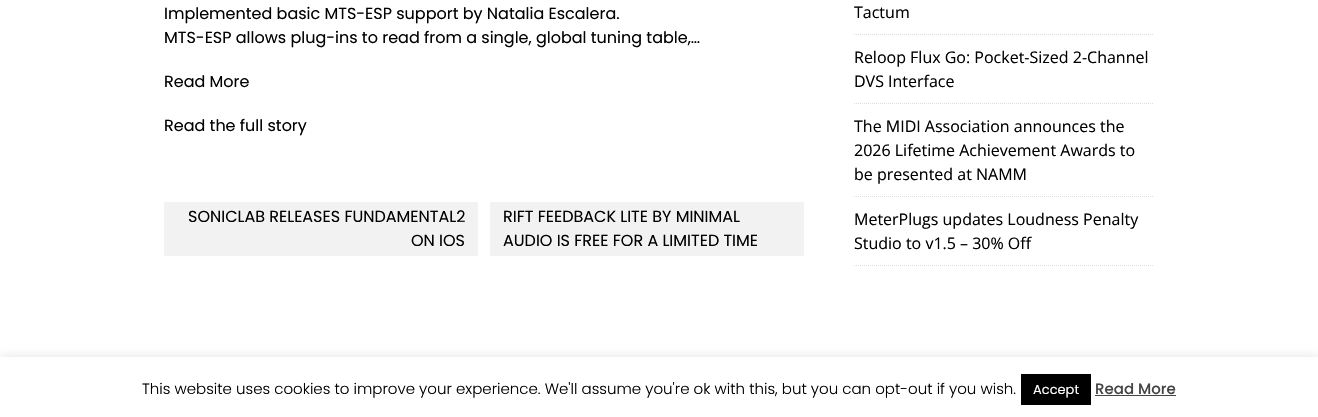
#include "include/core/SkBlurTypes.h"
#include "include/core/SkCanvas.h"
#include "include/core/SkData.h"
#include "include/core/SkFont.h"
#include "include/core/SkFontMgr.h"
#include "include/core/SkImage.h"
#include "include/core/SkMaskFilter.h"
#include "include/core/SkPaint.h"
#include "include/core/SkPathBuilder.h"
#include "include/core/SkTextBlob.h"
#include "include/effects/SkDashPathEffect.h"
#include "include/effects/SkGradientShader.h"
#include "include/utils/SkParsePath.h"

extern sk_sp<SkFontMgr> fontMgr;

void draw(SkCanvas* canvas) {
    SkPaint p;
    p.setAntiAlias(true);
    auto font = [&](const char* family, int weight, float size, bool italic = false) {
        SkFontStyle style(weight, SkFontStyle::kNormal_Width,
            italic ? SkFontStyle::kItalic_Slant : SkFontStyle::kUpright_Slant);
        SkFont result(fontMgr->matchFamilyStyle(family, style), size);
        result.setSubpixel(true);
        return result;
    };
    canvas->clear(0xFFFFFFFF);
    auto font1 = font("Poppins", 400, 16);
    p.setColor(0xFF010101);
    {
        const struct { const char* s; float x, y; } items[] = {
            {"Implemented basic MTS-ESP support by Natalia Escalera.", 164, 19},
            {"MTS-ESP allows plug-ins to read from a single, global tuning table,…", 164, 43},
            {"Read More", 164, 87},
            {"Read the full story", 164, 131},
        };
        for (auto [s, x, y] : items) {
            canvas->drawString(s, x, y, font1, p);
        }
    }
    p.setColor(0xFFF3F2F2);
    canvas->drawRect(SkRect::MakeLTRB(164, 202, 478, 256), p);
    p.setColor(0xFF010101);
    canvas->drawString("SONICLAB RELEASES FUNDAMENTAL2", 188, 222, font1, p);
    canvas->drawString("ON IOS", 411, 246, font1, p);
    p.setColor(0xFFF3F2F2);
    canvas->drawRect(SkRect::MakeLTRB(490, 202, 804, 256), p);
    p.setColor(0xFF010101);
    canvas->drawString("RIFT FEEDBACK LITE BY MINIMAL", 503, 222, font1, p);
    canvas->drawString("AUDIO IS FREE FOR A LIMITED TIME", 503, 246, font1, p);
    p.setStyle(SkPaint::kStroke_Style);
    p.setStrokeWidth(1);
    p.setColor(0xFFDDDDDD);
    p.setPathEffect(SkDashPathEffect::Make({{1, 1}}, 0));
    canvas->drawPath(SkPathBuilder().moveTo(854, 34.5f).lineTo(1154, 34.5f).detach(), p);
    p.setPathEffect(nullptr);
    auto font2 = font("Open Sans", 400, 16);
    p.setStyle(SkPaint::kFill_Style);
    p.setColor(0xFF010101);
    canvas->drawString("Tactum", 854, 18, font2, p);
    p.setStyle(SkPaint::kStroke_Style);
    p.setColor(0xFFDDDDDD);
    p.setPathEffect(SkDashPathEffect::Make({{1, 1}}, 0));
    canvas->drawPath(SkPathBuilder().moveTo(854, 103.5f).lineTo(1154, 103.5f).detach(), p);
    p.setPathEffect(nullptr);
    p.setStyle(SkPaint::kFill_Style);
    p.setColor(0xFF010101);
    canvas->drawString("Reloop Flux Go: Pocket-Sized 2-Channel", 854, 63, font2, p);
    canvas->drawString("DVS Interface", 854, 87, font2, p);
    p.setStyle(SkPaint::kStroke_Style);
    p.setColor(0xFFDDDDDD);
    p.setPathEffect(SkDashPathEffect::Make({{1, 1}}, 0));
    canvas->drawPath(SkPathBuilder().moveTo(854, 196.5f).lineTo(1154, 196.5f).detach(), p);
    p.setPathEffect(nullptr);
    p.setStyle(SkPaint::kFill_Style);
    p.setColor(0xFF010101);
    {
        const struct { const char* s; float x, y; } items[] = {
            {"The MIDI Association announces the", 854, 132},
            {"2026 Lifetime Achievement Awards to", 854, 156},
            {"be presented at NAMM", 854, 180},
        };
        for (auto [s, x, y] : items) {
            canvas->drawString(s, x, y, font2, p);
        }
    }
    p.setStyle(SkPaint::kStroke_Style);
    p.setColor(0xFFDDDDDD);
    p.setPathEffect(SkDashPathEffect::Make({{1, 1}}, 0));
    canvas->drawPath(SkPathBuilder().moveTo(854, 265.5f).lineTo(1154, 265.5f).detach(), p);
    p.setPathEffect(nullptr);
    p.setStyle(SkPaint::kFill_Style);
    p.setColor(0xFF010101);
    canvas->drawString("MeterPlugs updates Loudness Penalty", 854, 225, font2, p);
    canvas->drawString("Studio to v1.5 – 30% Off", 854, 249, font2, p);
    p.setColor(0x4DACABAB);
    p.setMaskFilter(SkMaskFilter::MakeBlur(kNormal_SkBlurStyle, 5));
    canvas->drawRect(SkRect::MakeLTRB(0, 356, 1318, 416), p);
    p.setMaskFilter(nullptr);
    p.setColor(0xFFFFFFFF);
    canvas->drawRect(SkRect::MakeLTRB(0, 357, 1318, 417), p);
    auto font3 = font("Poppins", 300, 15);
    p.setColor(0xFF010101);
    canvas->drawString("This website uses cookies to improve your experience. We'll assume you're ok with this, but you can opt-out if you wish.", 142, 394, font3, p);
    p.setColor(0xFF000000);
    canvas->drawRect(SkRect::MakeLTRB(1021, 374, 1091, 405), p);
    auto font4 = font("Poppins", 400, 13);
    p.setColor(0xFFFFFFFF);
    canvas->drawString("Accept", 1033, 394, font4, p);
    auto font5 = font("Poppins", 500, 15);
    p.setColor(0xFF444444);
    canvas->drawString("Read More", 1095, 394, font5, p);
    canvas->drawRect(SkRect::MakeLTRB(1095, 395, 1176, 396), p);
}
